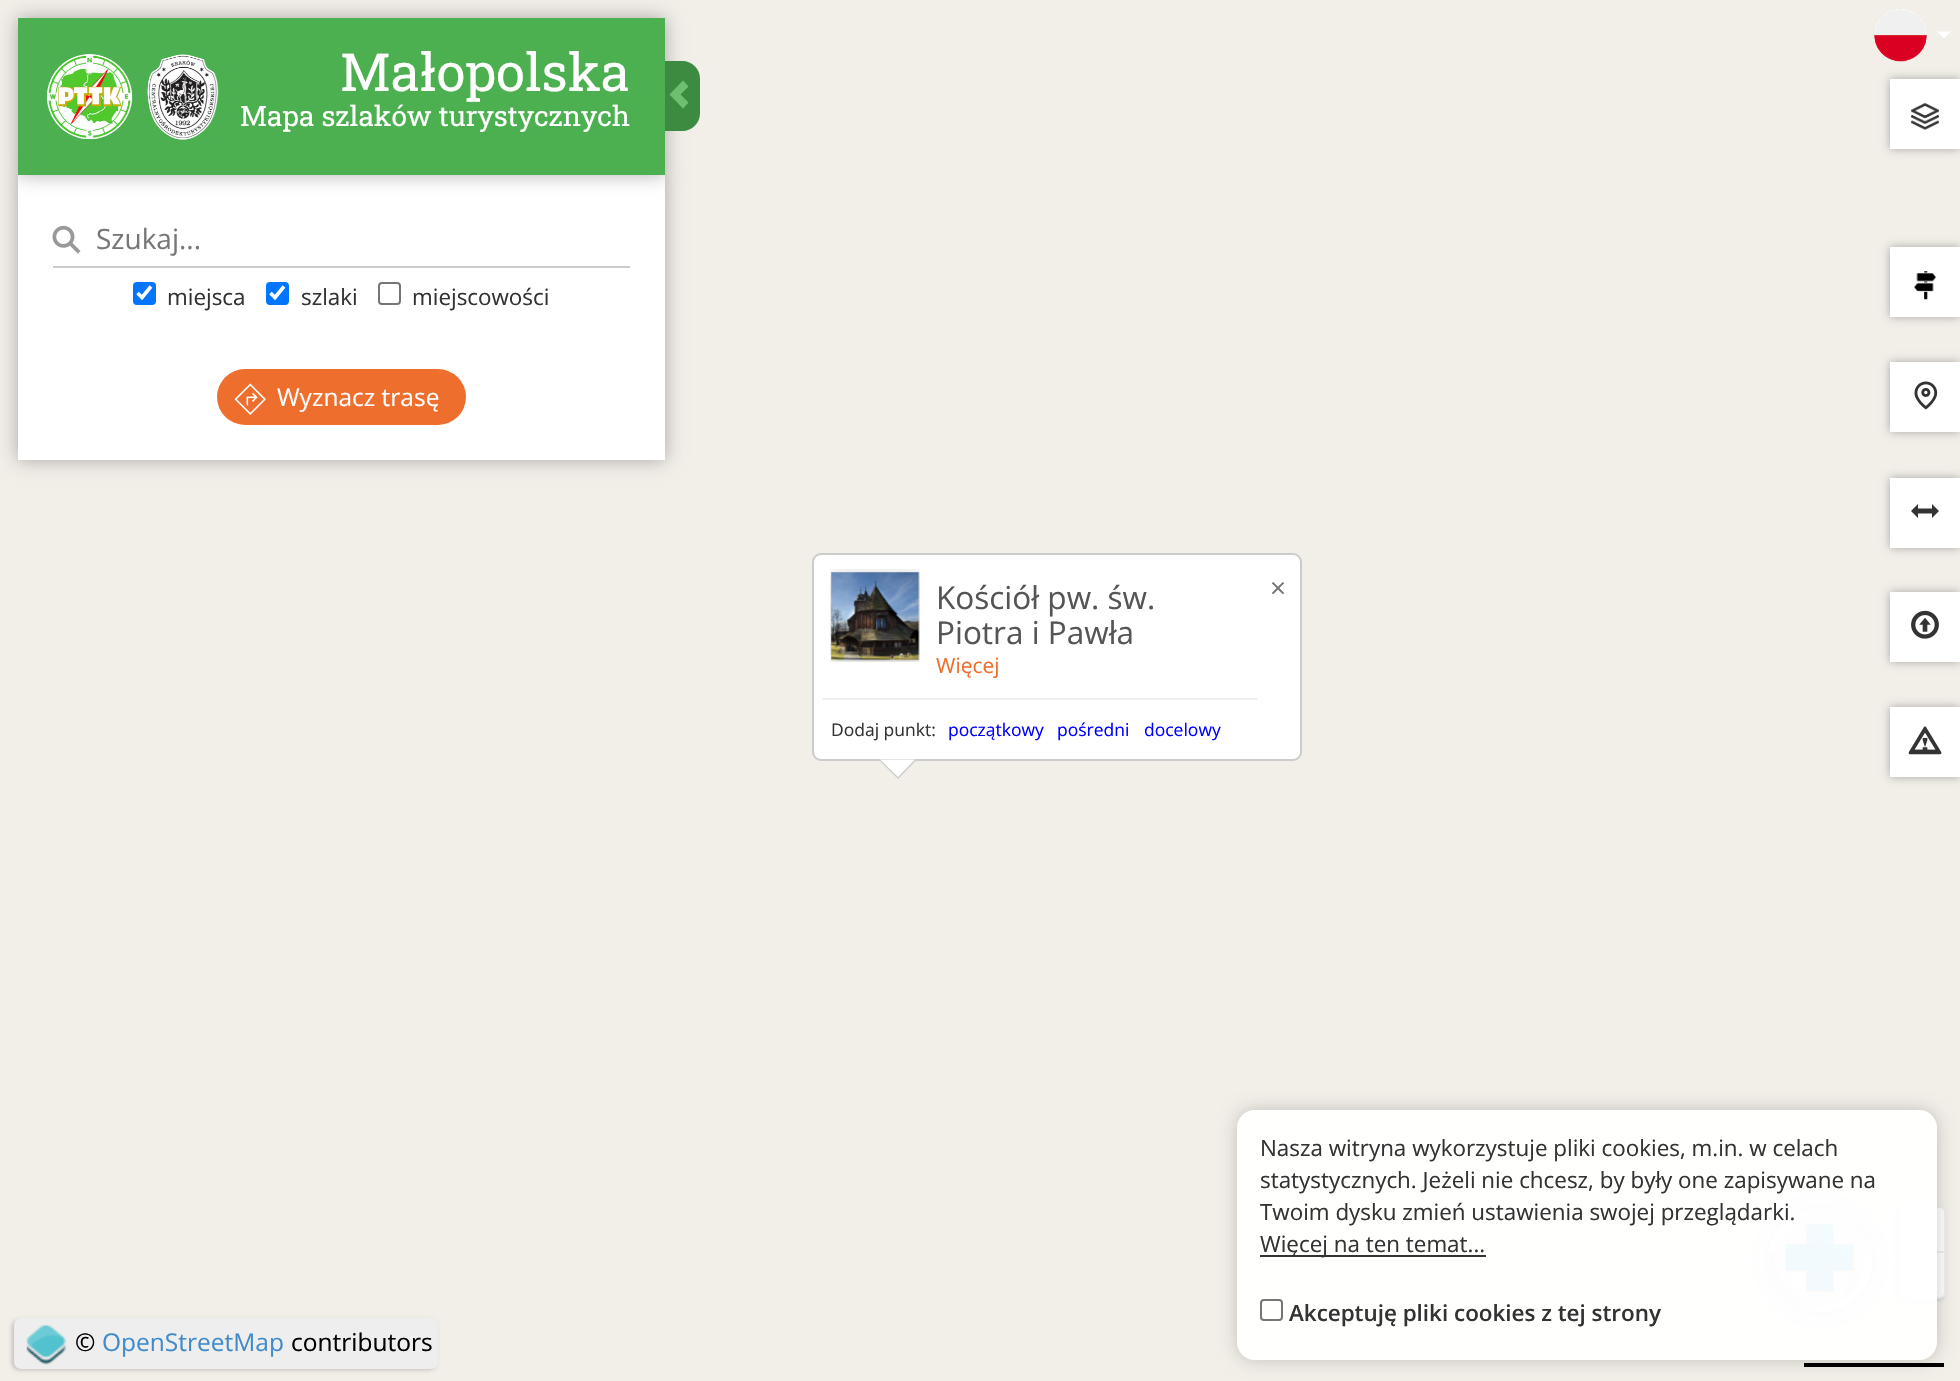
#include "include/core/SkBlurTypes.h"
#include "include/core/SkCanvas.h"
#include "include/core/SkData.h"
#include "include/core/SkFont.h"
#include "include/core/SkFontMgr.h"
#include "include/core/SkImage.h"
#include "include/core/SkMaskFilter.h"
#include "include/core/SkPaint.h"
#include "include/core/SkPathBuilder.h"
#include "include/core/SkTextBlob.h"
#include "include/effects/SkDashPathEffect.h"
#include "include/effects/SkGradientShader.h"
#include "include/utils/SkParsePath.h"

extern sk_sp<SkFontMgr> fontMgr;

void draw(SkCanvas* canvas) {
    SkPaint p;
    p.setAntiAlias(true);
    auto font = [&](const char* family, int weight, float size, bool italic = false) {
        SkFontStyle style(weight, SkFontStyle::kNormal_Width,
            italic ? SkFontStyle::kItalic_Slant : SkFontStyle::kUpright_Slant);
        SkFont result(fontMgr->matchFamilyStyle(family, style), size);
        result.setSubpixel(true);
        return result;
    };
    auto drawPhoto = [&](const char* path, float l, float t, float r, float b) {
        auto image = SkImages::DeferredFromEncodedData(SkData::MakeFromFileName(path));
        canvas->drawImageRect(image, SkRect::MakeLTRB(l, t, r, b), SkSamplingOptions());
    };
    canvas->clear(0xFFF2EFE9);
    drawPhoto("media/1.png", 1874, 9, 1927, 62);
    p.setColor(0xFFFFFFFF);
    canvas->drawPath(SkPathBuilder().moveTo(1937, 31.5f).lineTo(1951, 31.5f).lineTo(1944, 38.5f).close().detach(), p);
    p.setColor(0x4D000000);
    p.setMaskFilter(SkMaskFilter::MakeBlur(kNormal_SkBlurStyle, 9));
    canvas->drawRect(SkRect::MakeLTRB(18, 175, 665, 460), p);
    p.setMaskFilter(nullptr);
    p.setColor(0xFFFFFFFF);
    canvas->drawRect(SkRect::MakeLTRB(18, 175, 665, 460), p);
    p.setColor(0x4D000000);
    p.setMaskFilter(SkMaskFilter::MakeBlur(kNormal_SkBlurStyle, 9));
    canvas->drawRect(SkRect::MakeLTRB(18, 18, 665, 175), p);
    p.setMaskFilter(nullptr);
    p.setColor(0xFF4CAF50);
    canvas->drawRect(SkRect::MakeLTRB(18, 18, 665, 175), p);
    drawPhoto("media/2.png", 47, 54, 219, 140);
    auto font1 = font("Roboto Slab", 400, 52.5f);
    p.setColor(0xFFFFFFFF);
    canvas->drawString("Małopolska", 340, 91, font1, p);
    auto font2 = font("Roboto Slab", 400, 28);
    canvas->drawString("Mapa szlaków turystycznych", 240, 126, font2, p);
    p.setColor(0xFF3D8B40);
    canvas->drawPath(SkPathBuilder().moveTo(665, 61).lineTo(682.5f, 61).cubicTo(692, 61, 700, 69, 700, 78.5f).lineTo(700, 113.5f).cubicTo(700, 123, 692, 131, 682.5f, 131).lineTo(665, 131).close().detach(), p);
    p.setColor(0xFF6EC071);
    canvas->drawPath(SkPathBuilder().moveTo(669.5f, 94.5f).lineTo(683, 108.5f).lineTo(688.5f, 102.5f).lineTo(680.5f, 94.5f).lineTo(688.5f, 86.5f).lineTo(683, 80.5f).close().detach(), p);
    drawPhoto("media/3.png", 52, 225, 81, 254);
    p.setColor(0xFFCCCCCC);
    canvas->drawRect(SkRect::MakeLTRB(53, 266, 630, 268), p);
    auto font3 = font("Open Sans", 400, 28);
    p.setColor(0xFF777777);
    canvas->drawString("Szukaj...", 96, 249, font3, p);
    p.setColor(0xFF0075FF);
    canvas->drawRoundRect(SkRect::MakeLTRB(133, 282, 156, 305), 4, 4, p);
    p.setStyle(SkPaint::kStroke_Style);
    p.setStrokeWidth(3.6f);
    p.setColor(0xFFFFFFFF);
    canvas->drawPath(SkPathBuilder().moveTo(137.5f, 293).lineTo(142, 297.5f).lineTo(151, 286.5f).detach(), p);
    auto font4 = font("Open Sans", 400, 22.4f);
    p.setStyle(SkPaint::kFill_Style);
    p.setColor(0xFF333333);
    canvas->drawString("miejsca", 167, 305, font4, p);
    p.setColor(0xFF0075FF);
    canvas->drawRoundRect(SkRect::MakeLTRB(266, 282, 289, 305), 4, 4, p);
    p.setStyle(SkPaint::kStroke_Style);
    p.setColor(0xFFFFFFFF);
    canvas->drawPath(SkPathBuilder().moveTo(270.5f, 293).lineTo(275, 297.5f).lineTo(284, 286.5f).detach(), p);
    p.setStyle(SkPaint::kFill_Style);
    p.setColor(0xFF333333);
    canvas->drawString("szlaki", 301, 305, font4, p);
    p.setStyle(SkPaint::kStroke_Style);
    p.setStrokeWidth(2);
    p.setColor(0xFF767676);
    canvas->drawRoundRect(SkRect::MakeLTRB(379, 283, 400, 304), 3, 3, p);
    p.setStyle(SkPaint::kFill_Style);
    p.setColor(0xFF333333);
    canvas->drawString("miejscowości", 412, 305, font4, p);
    p.setColor(0xFFEE6E2D);
    canvas->drawRoundRect(SkRect::MakeLTRB(217, 369, 466, 425), 28, 28, p);
    drawPhoto("media/4.png", 234, 383, 266, 415);
    auto font5 = font("Open Sans", 400, 24.5f);
    p.setColor(0xFFFFFFFF);
    canvas->drawString("Wyznacz trasę", 277, 406, font5, p);
    p.setColor(0x4D000000);
    p.setMaskFilter(SkMaskFilter::MakeBlur(kNormal_SkBlurStyle, 4.5f));
    canvas->drawRect(SkRect::MakeLTRB(1890, 79, 1960, 149), p);
    p.setMaskFilter(nullptr);
    p.setColor(0xFFFFFFFF);
    canvas->drawRect(SkRect::MakeLTRB(1890, 79, 1960, 149), p);
    drawPhoto("media/5.png", 1911, 103, 1939, 130);
    p.setColor(0x4D000000);
    p.setMaskFilter(SkMaskFilter::MakeBlur(kNormal_SkBlurStyle, 4.5f));
    canvas->drawRect(SkRect::MakeLTRB(1890, 247, 1960, 317), p);
    p.setMaskFilter(nullptr);
    p.setColor(0xFFFFFFFF);
    canvas->drawRect(SkRect::MakeLTRB(1890, 247, 1960, 317), p);
    drawPhoto("media/6.png", 1913, 271, 1937, 300);
    p.setColor(0x4D000000);
    p.setMaskFilter(SkMaskFilter::MakeBlur(kNormal_SkBlurStyle, 4.5f));
    canvas->drawRect(SkRect::MakeLTRB(1890, 362, 1960, 432), p);
    p.setMaskFilter(nullptr);
    p.setColor(0xFFFFFFFF);
    canvas->drawRect(SkRect::MakeLTRB(1890, 362, 1960, 432), p);
    drawPhoto("media/7.png", 1914, 381, 1938, 410);
    p.setColor(0x4D000000);
    p.setMaskFilter(SkMaskFilter::MakeBlur(kNormal_SkBlurStyle, 4.5f));
    canvas->drawRect(SkRect::MakeLTRB(1890, 478, 1960, 548), p);
    p.setMaskFilter(nullptr);
    p.setColor(0xFFFFFFFF);
    canvas->drawRect(SkRect::MakeLTRB(1890, 478, 1960, 548), p);
    p.setColor(0xFF333333);
    canvas->drawPath(SkPathBuilder().moveTo(1911, 511).lineTo(1918, 504).lineTo(1918, 508.5f).lineTo(1932, 508.5f).lineTo(1932, 504).lineTo(1939, 511).lineTo(1932, 518).lineTo(1932, 513.5f).lineTo(1918, 513.5f).lineTo(1918, 518).close().detach(), p);
    p.setColor(0x4D000000);
    p.setMaskFilter(SkMaskFilter::MakeBlur(kNormal_SkBlurStyle, 4.5f));
    canvas->drawRect(SkRect::MakeLTRB(1890, 592, 1960, 662), p);
    p.setMaskFilter(nullptr);
    p.setColor(0xFFFFFFFF);
    canvas->drawRect(SkRect::MakeLTRB(1890, 592, 1960, 662), p);
    drawPhoto("media/8.png", 1911, 610, 1939, 639);
    p.setColor(0x4D000000);
    p.setMaskFilter(SkMaskFilter::MakeBlur(kNormal_SkBlurStyle, 4.5f));
    canvas->drawRect(SkRect::MakeLTRB(1890, 707, 1960, 777), p);
    p.setMaskFilter(nullptr);
    p.setColor(0xFFFFFFFF);
    canvas->drawRect(SkRect::MakeLTRB(1890, 707, 1960, 777), p);
    drawPhoto("media/9.png", 1908, 726, 1942, 755);
    canvas->drawRoundRect(SkRect::MakeLTRB(813, 554, 1301, 760), 8, 8, p);
    p.setStyle(SkPaint::kStroke_Style);
    p.setColor(0xFFCCCCCC);
    canvas->drawRoundRect(SkRect::MakeLTRB(813, 554, 1301, 760), 8, 8, p);
    p.setStyle(SkPaint::kFill_Style);
    p.setColor(0xFFEEEEEE);
    canvas->drawRect(SkRect::MakeLTRB(823, 698, 1257, 700), p);
    canvas->drawRect(SkRect::MakeLTRB(831, 572, 919, 660), p);
    drawPhoto("media/10.png", 830, 569, 920, 662);
    auto font6 = font("Open Sans", 400, 31.5f);
    p.setColor(0xFF555555);
    canvas->drawString("Kościół pw. św.", 936, 609, font6, p);
    canvas->drawString("Piotra i Pawła", 936, 644, font6, p);
    auto font7 = font("Open Sans", 400, 21);
    p.setColor(0xFFEE6E2D);
    canvas->drawString("Więcej", 936, 673, font7, p);
    auto font8 = font("Open Sans", 400, 17.5f);
    p.setColor(0xFF333333);
    canvas->drawString("Dodaj punkt:", 831, 736, font8, p);
    p.setColor(0xFF0000FF);
    {
        const struct { const char* s; float x, y; } items[] = {
            {"początkowy", 948, 736},
            {"pośredni", 1057, 736},
            {"docelowy", 1144, 736},
        };
        for (auto [s, x, y] : items) {
            canvas->drawString(s, x, y, font8, p);
        }
    }
    p.setColor(0xFF777777);
    canvas->drawString("×", 1270, 598, font3, p);
    p.setColor(0xFFCCCCCC);
    canvas->drawPath(SkPathBuilder().moveTo(878.5f, 759.5f).lineTo(917, 759.5f).lineTo(898, 779).close().detach(), p);
    p.setColor(0xFFFFFFFF);
    canvas->drawPath(SkPathBuilder().moveTo(880, 759.5f).lineTo(915, 759.5f).lineTo(898, 777).close().detach(), p);
    p.setColor(0x33000000);
    p.setMaskFilter(SkMaskFilter::MakeBlur(kNormal_SkBlurStyle, 2));
    canvas->drawRoundRect(SkRect::MakeLTRB(1897, 1208, 1944, 1300), 7, 7, p);
    p.setMaskFilter(nullptr);
    p.setColor(0xFFEEEEEE);
    canvas->drawRoundRect(SkRect::MakeLTRB(1899, 1206, 1946, 1299), 7, 7, p);
    p.setColor(0xFFFFFFFF);
    canvas->drawPath(SkPathBuilder().moveTo(1905, 1208).lineTo(1940, 1208).cubicTo(1942, 1208, 1944, 1210, 1944, 1212).lineTo(1944, 1251).lineTo(1901, 1251).lineTo(1901, 1212).cubicTo(1901, 1210, 1903, 1208, 1905, 1208).close().detach(), p);
    canvas->drawPath(SkPathBuilder().moveTo(1901, 1253).lineTo(1944, 1253).lineTo(1944, 1293).cubicTo(1944, 1295, 1942, 1297, 1940, 1297).lineTo(1905, 1297).cubicTo(1903, 1297, 1901, 1295, 1901, 1293).close().detach(), p);
    p.setColor(0x33000000);
    p.setMaskFilter(SkMaskFilter::MakeBlur(kNormal_SkBlurStyle, 2));
    canvas->drawRoundRect(SkRect::MakeLTRB(12, 1320, 436, 1370), 7, 7, p);
    p.setMaskFilter(nullptr);
    p.setColor(0xFFEEEEEE);
    canvas->drawRoundRect(SkRect::MakeLTRB(14, 1318, 438, 1369), 7, 7, p);
    drawPhoto("media/11.png", 26, 1324, 67, 1365);
    p.setColor(0xFF000000);
    canvas->drawString("©", 75, 1351, font5, p);
    p.setColor(0xFF428BCA);
    canvas->drawString("OpenStreetMap", 102, 1351, font5, p);
    p.setColor(0xFF000000);
    canvas->drawString("contributors", 291, 1351, font5, p);
    canvas->drawRect(SkRect::MakeLTRB(1804, 1363, 1944, 1367), p);
    p.setColor(0x4D000000);
    p.setMaskFilter(SkMaskFilter::MakeBlur(kNormal_SkBlurStyle, 9));
    canvas->drawRoundRect(SkRect::MakeLTRB(1768, 1208, 1873, 1313), 52.5f, 52.5f, p);
    p.setMaskFilter(nullptr);
    drawPhoto("media/12.png", 1768, 1208, 1872, 1313);
    canvas->save();
    canvas->clipPath(SkPathBuilder(SkPathFillType::kEvenOdd).moveTo(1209, 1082).lineTo(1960, 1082).lineTo(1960, 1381).lineTo(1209, 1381).close().moveTo(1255, 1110).lineTo(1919, 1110).cubicTo(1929, 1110, 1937, 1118, 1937, 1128).lineTo(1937, 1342).cubicTo(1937, 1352, 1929, 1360, 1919, 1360).lineTo(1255, 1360).cubicTo(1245, 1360, 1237, 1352, 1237, 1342).lineTo(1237, 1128).cubicTo(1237, 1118, 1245, 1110, 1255, 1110).close().detach(), true);
    p.setColor(0x33000000);
    p.setMaskFilter(SkMaskFilter::MakeBlur(kNormal_SkBlurStyle, 9));
    canvas->drawRoundRect(SkRect::MakeLTRB(1237, 1110, 1937, 1360), 18, 18, p);
    p.setMaskFilter(nullptr);
    canvas->restore();
    p.setColor(0xF2FFFFFF);
    canvas->drawRoundRect(SkRect::MakeLTRB(1237, 1110, 1937, 1360), 18, 18, p);
    p.setColor(0xFF333333);
    {
        const struct { const char* s; float x, y; } items[] = {
            {"Nasza witryna wykorzystuje pliki cookies, m.in. w celach", 1260, 1156},
            {"statystycznych. Jeżeli nie chcesz, by były one zapisywane na", 1260, 1188},
            {"Twoim dysku zmień ustawienia swojej przeglądarki.", 1260, 1220},
        };
        for (auto [s, x, y] : items) {
            canvas->drawString(s, x, y, font4, p);
        }
    }
    canvas->drawRect(SkRect::MakeLTRB(1260, 1255, 1486, 1257), p);
    canvas->drawString("Więcej na ten temat...", 1260, 1252, font4, p);
    p.setStyle(SkPaint::kStroke_Style);
    p.setColor(0xFF767676);
    canvas->drawRoundRect(SkRect::MakeLTRB(1261, 1300, 1282, 1320), 3, 3, p);
    auto font9 = font("Open Sans", 600, 22.4f);
    p.setStyle(SkPaint::kFill_Style);
    p.setColor(0xFF333333);
    canvas->drawString("Akceptuję pliki cookies z tej strony", 1289, 1321, font9, p);
}
